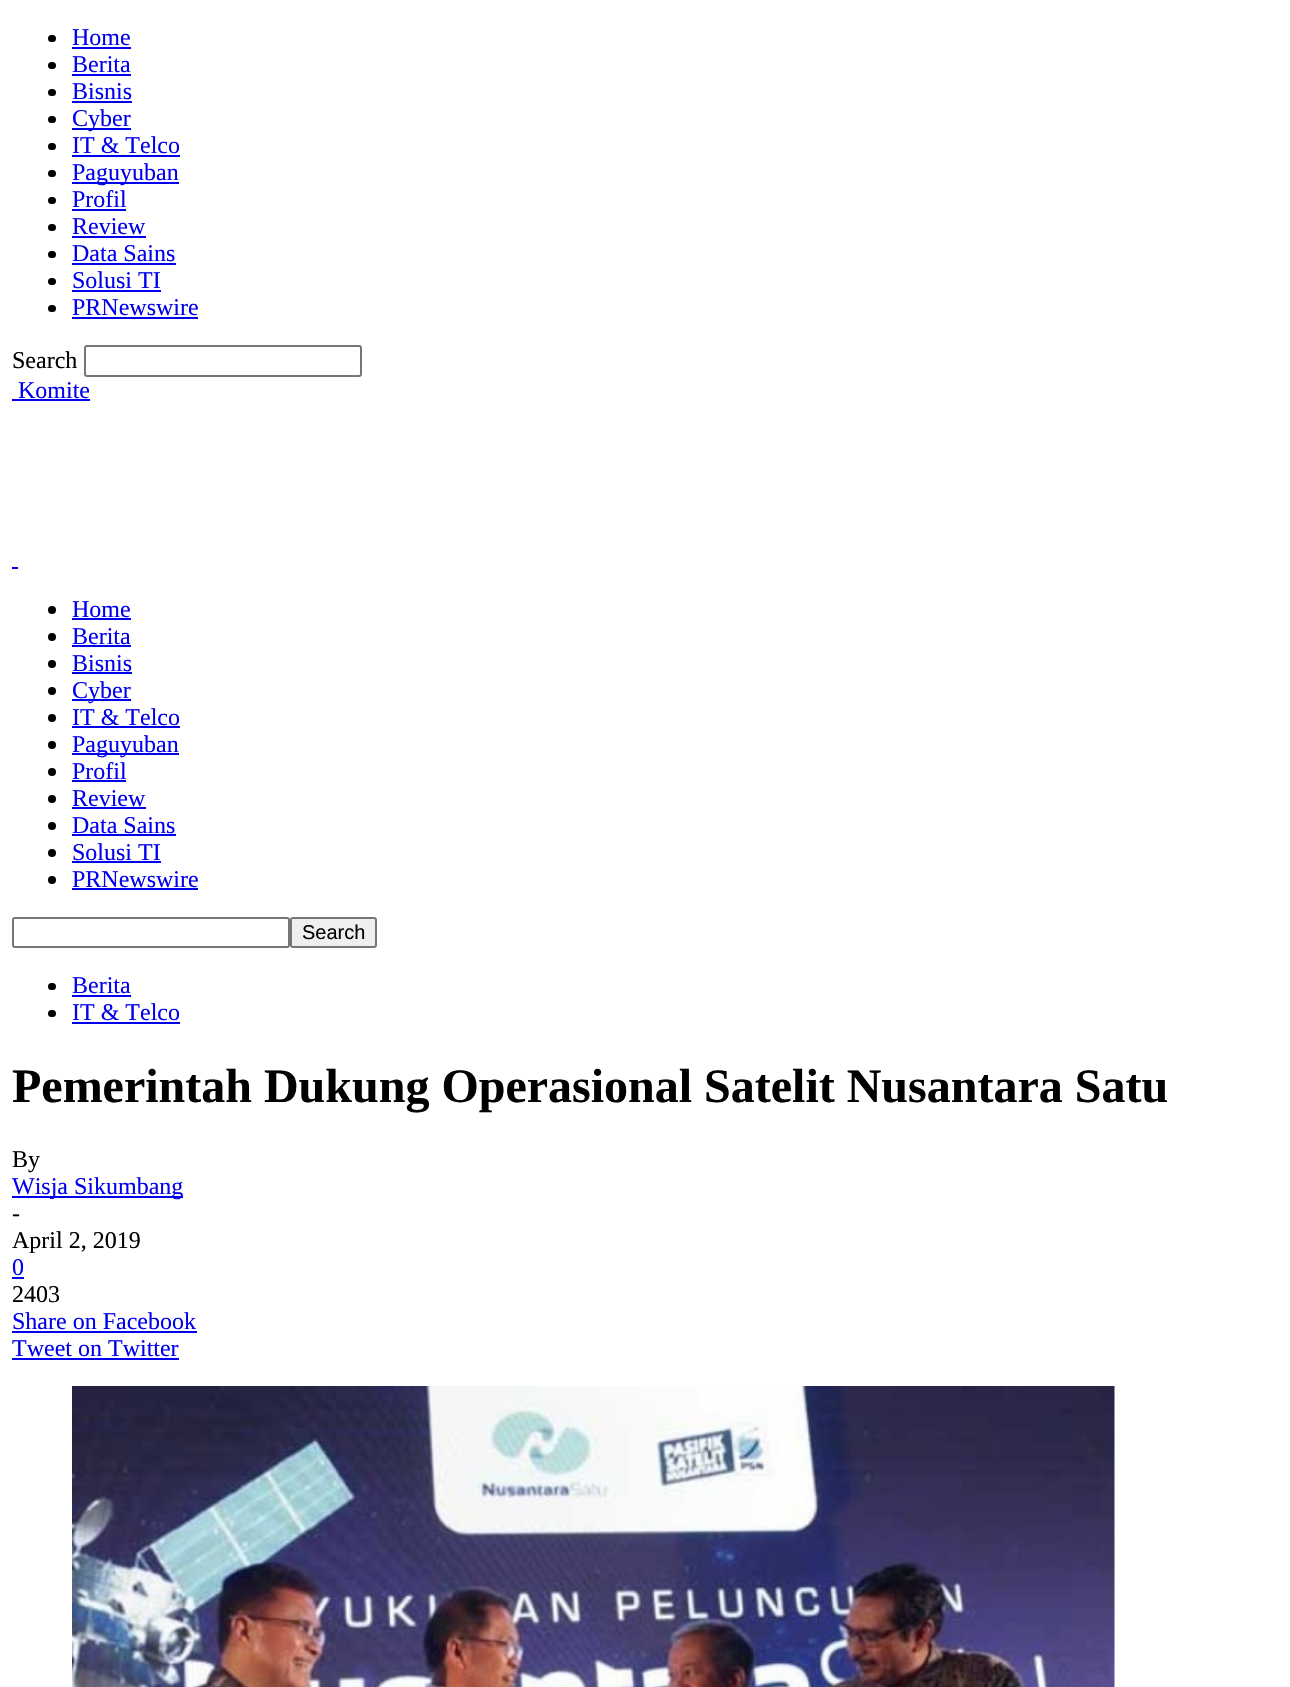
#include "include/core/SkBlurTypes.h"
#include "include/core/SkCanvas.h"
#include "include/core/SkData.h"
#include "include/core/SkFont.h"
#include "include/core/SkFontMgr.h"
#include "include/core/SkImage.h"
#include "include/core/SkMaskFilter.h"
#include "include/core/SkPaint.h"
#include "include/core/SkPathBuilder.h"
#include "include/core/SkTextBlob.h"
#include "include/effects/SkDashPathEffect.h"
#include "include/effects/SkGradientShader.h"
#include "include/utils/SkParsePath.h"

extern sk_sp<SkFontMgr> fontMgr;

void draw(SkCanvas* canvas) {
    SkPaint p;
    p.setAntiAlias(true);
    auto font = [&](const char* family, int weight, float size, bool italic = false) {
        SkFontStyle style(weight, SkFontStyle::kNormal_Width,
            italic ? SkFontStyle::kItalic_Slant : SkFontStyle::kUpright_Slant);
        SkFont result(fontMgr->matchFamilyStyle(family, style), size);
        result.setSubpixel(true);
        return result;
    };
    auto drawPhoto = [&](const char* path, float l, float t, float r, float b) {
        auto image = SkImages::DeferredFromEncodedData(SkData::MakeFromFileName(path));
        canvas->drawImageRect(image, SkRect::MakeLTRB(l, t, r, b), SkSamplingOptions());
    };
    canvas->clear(0xFFFFFFFF);
    p.setColor(0xFF000000);
    canvas->drawRoundRect(SkRect::MakeLTRB(48, 35, 56, 42), 3.5f, 3.5f, p);
    auto font1 = font("Liberation Serif", 400, 24);
    p.setColor(0xFF0000EE);
    canvas->drawString("Home", 72, 45, font1, p);
    canvas->drawRect(SkRect::MakeLTRB(72, 47, 131, 49), p);
    p.setColor(0xFF000000);
    canvas->drawRoundRect(SkRect::MakeLTRB(48, 62, 56, 69), 3.5f, 3.5f, p);
    p.setColor(0xFF0000EE);
    canvas->drawString("Berita", 72, 72, font1, p);
    canvas->drawRect(SkRect::MakeLTRB(72, 74, 131, 76), p);
    p.setColor(0xFF000000);
    canvas->drawRoundRect(SkRect::MakeLTRB(48, 89, 56, 96), 3.5f, 3.5f, p);
    p.setColor(0xFF0000EE);
    canvas->drawString("Bisnis", 72, 99, font1, p);
    canvas->drawRect(SkRect::MakeLTRB(72, 101, 132, 103), p);
    p.setColor(0xFF000000);
    canvas->drawRoundRect(SkRect::MakeLTRB(48, 116, 56, 123), 3.5f, 3.5f, p);
    p.setColor(0xFF0000EE);
    canvas->drawRect(SkRect::MakeLTRB(72, 128, 131, 130), p);
    canvas->drawString("Cyber", 72, 126, font1, p);
    p.setColor(0xFF000000);
    canvas->drawRoundRect(SkRect::MakeLTRB(48, 143, 56, 150), 3.5f, 3.5f, p);
    p.setColor(0xFF0000EE);
    canvas->drawString("IT & Telco", 72, 153, font1, p);
    canvas->drawRect(SkRect::MakeLTRB(72, 155, 180, 157), p);
    p.setColor(0xFF000000);
    canvas->drawRoundRect(SkRect::MakeLTRB(48, 170, 56, 177), 3.5f, 3.5f, p);
    p.setColor(0xFF0000EE);
    canvas->drawRect(SkRect::MakeLTRB(72, 182, 179, 184), p);
    canvas->drawString("Paguyuban", 72, 180, font1, p);
    p.setColor(0xFF000000);
    canvas->drawRoundRect(SkRect::MakeLTRB(48, 197, 56, 204), 3.5f, 3.5f, p);
    p.setColor(0xFF0000EE);
    canvas->drawString("Profil", 72, 207, font1, p);
    canvas->drawRect(SkRect::MakeLTRB(72, 209, 126, 211), p);
    p.setColor(0xFF000000);
    canvas->drawRoundRect(SkRect::MakeLTRB(48, 224, 56, 231), 3.5f, 3.5f, p);
    p.setColor(0xFF0000EE);
    canvas->drawString("Review", 72, 234, font1, p);
    canvas->drawRect(SkRect::MakeLTRB(72, 236, 146, 238), p);
    p.setColor(0xFF000000);
    canvas->drawRoundRect(SkRect::MakeLTRB(48, 251, 56, 258), 3.5f, 3.5f, p);
    p.setColor(0xFF0000EE);
    canvas->drawString("Data Sains", 72, 261, font1, p);
    canvas->drawRect(SkRect::MakeLTRB(72, 263, 176, 265), p);
    p.setColor(0xFF000000);
    canvas->drawRoundRect(SkRect::MakeLTRB(48, 278, 56, 285), 3.5f, 3.5f, p);
    p.setColor(0xFF0000EE);
    canvas->drawString("Solusi TI", 72, 288, font1, p);
    canvas->drawRect(SkRect::MakeLTRB(72, 290, 161, 292), p);
    p.setColor(0xFF000000);
    canvas->drawRoundRect(SkRect::MakeLTRB(48, 305, 56, 312), 3.5f, 3.5f, p);
    p.setColor(0xFF0000EE);
    canvas->drawString("PRNewswire", 72, 315, font1, p);
    canvas->drawRect(SkRect::MakeLTRB(72, 317, 198, 319), p);
    p.setColor(0xFF000000);
    canvas->drawString("Search", 12, 368, font1, p);
    p.setStyle(SkPaint::kStroke_Style);
    p.setStrokeWidth(2);
    p.setColor(0xFF767676);
    canvas->drawRoundRect(SkRect::MakeLTRB(85, 346, 361, 376), 2, 2, p);
    p.setStyle(SkPaint::kFill_Style);
    p.setColor(0xFF0000EE);
    canvas->drawString("Komite", 18, 398, font1, p);
    canvas->drawRect(SkRect::MakeLTRB(12, 399, 90, 401), p);
    canvas->drawRect(SkRect::MakeLTRB(12, 567, 18, 569), p);
    p.setColor(0xFF000000);
    canvas->drawCircle(52, 610, 4, p);
    p.setColor(0xFF0000EE);
    canvas->drawString("Home", 72, 617, font1, p);
    canvas->drawRect(SkRect::MakeLTRB(72, 618, 131, 620), p);
    p.setColor(0xFF000000);
    canvas->drawCircle(52, 637, 4, p);
    p.setColor(0xFF0000EE);
    canvas->drawString("Berita", 72, 644, font1, p);
    canvas->drawRect(SkRect::MakeLTRB(72, 645, 131, 647), p);
    p.setColor(0xFF000000);
    canvas->drawCircle(52, 664, 4, p);
    p.setColor(0xFF0000EE);
    canvas->drawString("Bisnis", 72, 671, font1, p);
    canvas->drawRect(SkRect::MakeLTRB(72, 672, 132, 674), p);
    p.setColor(0xFF000000);
    canvas->drawCircle(52, 691, 4, p);
    p.setColor(0xFF0000EE);
    canvas->drawRect(SkRect::MakeLTRB(72, 699, 131, 701), p);
    canvas->drawString("Cyber", 72, 698, font1, p);
    p.setColor(0xFF000000);
    canvas->drawCircle(52, 718, 4, p);
    p.setColor(0xFF0000EE);
    canvas->drawString("IT & Telco", 72, 725, font1, p);
    canvas->drawRect(SkRect::MakeLTRB(72, 726, 180, 728), p);
    p.setColor(0xFF000000);
    canvas->drawCircle(52, 745, 4, p);
    p.setColor(0xFF0000EE);
    canvas->drawRect(SkRect::MakeLTRB(72, 753, 179, 755), p);
    canvas->drawString("Paguyuban", 72, 752, font1, p);
    p.setColor(0xFF000000);
    canvas->drawCircle(52, 772, 4, p);
    p.setColor(0xFF0000EE);
    canvas->drawString("Profil", 72, 779, font1, p);
    canvas->drawRect(SkRect::MakeLTRB(72, 780, 126, 782), p);
    p.setColor(0xFF000000);
    canvas->drawCircle(52, 799, 4, p);
    p.setColor(0xFF0000EE);
    canvas->drawString("Review", 72, 806, font1, p);
    canvas->drawRect(SkRect::MakeLTRB(72, 807, 146, 809), p);
    p.setColor(0xFF000000);
    canvas->drawCircle(52, 826, 4, p);
    p.setColor(0xFF0000EE);
    canvas->drawString("Data Sains", 72, 833, font1, p);
    canvas->drawRect(SkRect::MakeLTRB(72, 834, 176, 836), p);
    p.setColor(0xFF000000);
    canvas->drawCircle(52, 853, 4, p);
    p.setColor(0xFF0000EE);
    canvas->drawString("Solusi TI", 72, 860, font1, p);
    canvas->drawRect(SkRect::MakeLTRB(72, 861, 161, 863), p);
    p.setColor(0xFF000000);
    canvas->drawCircle(52, 880, 4, p);
    p.setColor(0xFF0000EE);
    canvas->drawString("PRNewswire", 72, 887, font1, p);
    canvas->drawRect(SkRect::MakeLTRB(72, 888, 198, 890), p);
    p.setStyle(SkPaint::kStroke_Style);
    p.setColor(0xFF767676);
    canvas->drawRoundRect(SkRect::MakeLTRB(13, 918, 289, 947), 2, 2, p);
    p.setStyle(SkPaint::kFill_Style);
    p.setColor(0xFFEFEFEF);
    canvas->drawRoundRect(SkRect::MakeLTRB(291, 918, 376, 947), 2, 2, p);
    p.setStyle(SkPaint::kStroke_Style);
    p.setColor(0xFF767676);
    canvas->drawRoundRect(SkRect::MakeLTRB(291, 918, 376, 947), 2, 2, p);
    auto font2 = font("Liberation Sans", 400, 20);
    p.setStyle(SkPaint::kFill_Style);
    p.setColor(0xFF000000);
    canvas->drawString("Search", 302, 939, font2, p);
    canvas->drawRoundRect(SkRect::MakeLTRB(48, 983, 56, 990), 3.5f, 3.5f, p);
    p.setColor(0xFF0000EE);
    canvas->drawString("Berita", 72, 993, font1, p);
    canvas->drawRect(SkRect::MakeLTRB(72, 995, 131, 997), p);
    p.setColor(0xFF000000);
    canvas->drawRoundRect(SkRect::MakeLTRB(48, 1010, 56, 1017), 3.5f, 3.5f, p);
    p.setColor(0xFF0000EE);
    canvas->drawString("IT & Telco", 72, 1020, font1, p);
    canvas->drawRect(SkRect::MakeLTRB(72, 1022, 180, 1024), p);
    auto font3 = font("Liberation Serif", 700, 48);
    p.setColor(0xFF000000);
    canvas->drawString("Pemerintah Dukung Operasional Satelit Nusantara Satu", 12, 1102, font3, p);
    canvas->drawString("By", 12, 1167, font1, p);
    p.setColor(0xFF0000EE);
    canvas->drawRect(SkRect::MakeLTRB(12, 1196, 183, 1198), p);
    canvas->drawString("Wisja Sikumbang", 12, 1194, font1, p);
    p.setColor(0xFF000000);
    canvas->drawString("-", 12, 1221, font1, p);
    canvas->drawString("April 2, 2019", 12, 1248, font1, p);
    p.setColor(0xFF0000EE);
    canvas->drawString("0", 12, 1275, font1, p);
    canvas->drawRect(SkRect::MakeLTRB(12, 1277, 24, 1279), p);
    p.setColor(0xFF000000);
    canvas->drawString("2403", 12, 1302, font1, p);
    p.setColor(0xFF0000EE);
    canvas->drawString("Share on Facebook", 12, 1329, font1, p);
    canvas->drawRect(SkRect::MakeLTRB(12, 1331, 197, 1333), p);
    canvas->drawString("Tweet on Twitter", 12, 1356, font1, p);
    canvas->drawRect(SkRect::MakeLTRB(12, 1358, 179, 1360), p);
    drawPhoto("media/1.png", 72, 1386, 1115, 1687);
}
